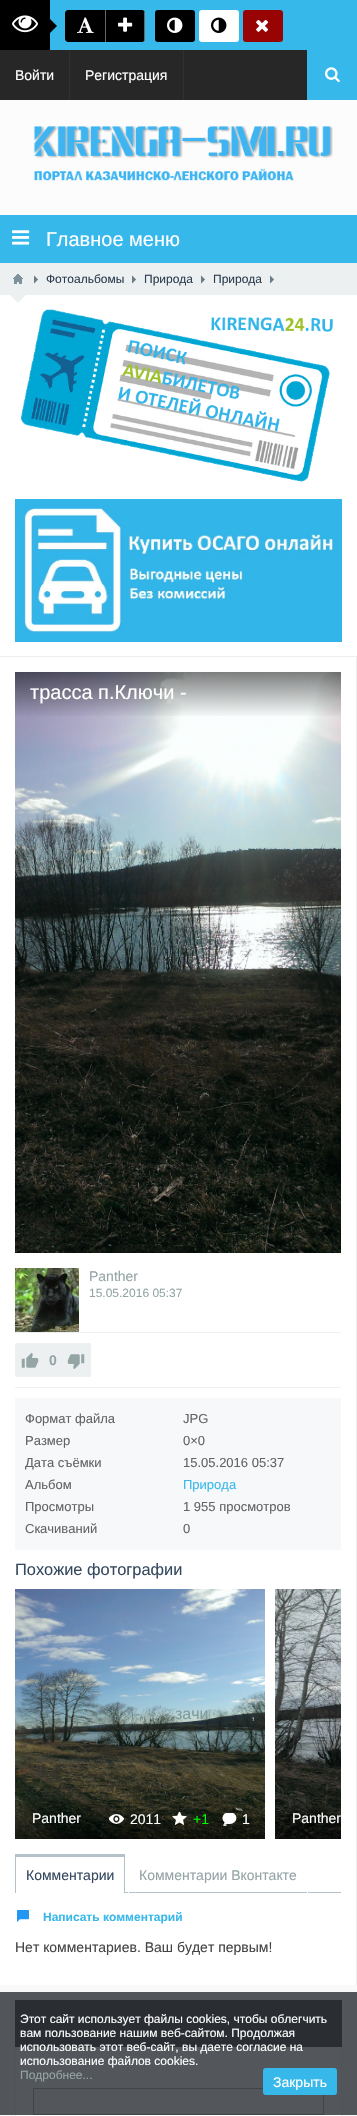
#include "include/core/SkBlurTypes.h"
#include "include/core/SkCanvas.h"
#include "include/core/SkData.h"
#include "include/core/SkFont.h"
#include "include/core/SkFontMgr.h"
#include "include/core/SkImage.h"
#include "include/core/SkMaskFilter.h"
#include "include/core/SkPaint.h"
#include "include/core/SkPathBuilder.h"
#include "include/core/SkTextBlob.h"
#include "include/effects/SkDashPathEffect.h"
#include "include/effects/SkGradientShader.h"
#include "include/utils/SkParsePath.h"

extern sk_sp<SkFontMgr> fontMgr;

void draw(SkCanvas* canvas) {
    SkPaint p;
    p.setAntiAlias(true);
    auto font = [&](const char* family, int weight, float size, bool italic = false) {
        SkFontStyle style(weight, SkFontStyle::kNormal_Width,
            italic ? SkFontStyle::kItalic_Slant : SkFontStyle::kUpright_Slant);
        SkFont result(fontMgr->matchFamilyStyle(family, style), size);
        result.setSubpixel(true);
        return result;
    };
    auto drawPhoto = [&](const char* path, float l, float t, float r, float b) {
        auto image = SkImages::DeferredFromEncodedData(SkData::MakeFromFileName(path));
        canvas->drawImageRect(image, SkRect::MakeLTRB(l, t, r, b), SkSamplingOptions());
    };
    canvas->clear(0xFFFFFFFF);
    {
        const struct { float l, t, r, b; SkColor color; } items[] = {
            {0, 50, 307, 100, 0xFF272727},
            {50, 0, 357, 50, 0xFF37B8EB},
            {0, 0, 50, 50, 0xFF000000},
        };
        for (auto [l, t, r, b, color] : items) {
            p.setColor(color);
            canvas->drawRect(SkRect::MakeLTRB(l, t, r, b), p);
        }
    }
    drawPhoto("media/1.png", 12, 15, 38, 33);
    canvas->drawPath(SkPathBuilder().moveTo(50, 33).lineTo(50, 19).lineTo(57, 26).close().detach(), p);
    canvas->drawPath(SkPathBuilder().moveTo(68, 10).lineTo(105, 10).lineTo(105, 42).lineTo(68, 42).cubicTo(66.5f, 42, 65, 40.5f, 65, 39).lineTo(65, 13).cubicTo(65, 11.5f, 66.5f, 10, 68, 10).close().detach(), p);
    drawPhoto("media/2.png", 77, 17, 94, 33);
    canvas->drawPath(SkPathBuilder().moveTo(105, 10).lineTo(142, 10).cubicTo(143.5f, 10, 145, 11.5f, 145, 13).lineTo(145, 39).cubicTo(145, 40.5f, 143.5f, 42, 142, 42).lineTo(105, 42).close().detach(), p);
    p.setColor(0xFF676767);
    canvas->drawRect(SkRect::MakeLTRB(144, 12, 145, 41), p);
    canvas->drawRect(SkRect::MakeLTRB(105, 10, 106, 42), p);
    drawPhoto("media/3.png", 118, 17, 133, 32);
    p.setColor(0xFF000000);
    canvas->drawRoundRect(SkRect::MakeLTRB(155, 10, 195, 42), 3, 3, p);
    drawPhoto("media/4.png", 167, 17, 183, 33);
    p.setColor(0xFFFFFFFF);
    canvas->drawRoundRect(SkRect::MakeLTRB(199, 10, 239, 42), 3, 3, p);
    drawPhoto("media/5.png", 211, 17, 227, 33);
    p.setColor(0xFF980404);
    canvas->drawRoundRect(SkRect::MakeLTRB(243, 10, 283, 42), 3, 3, p);
    drawPhoto("media/6.png", 256, 20, 268, 32);
    p.setColor(0xFF313131);
    canvas->drawRect(SkRect::MakeLTRB(69, 50, 70, 100), p);
    auto font1 = font("Liberation Sans", 400, 14);
    p.setColor(0xFFFFFFFF);
    canvas->drawString("Войти", 15, 80, font1, p);
    p.setColor(0xFF313131);
    canvas->drawRect(SkRect::MakeLTRB(183, 50, 184, 100), p);
    p.setColor(0xFFFFFFFF);
    canvas->drawString("Регистрация", 85, 80, font1, p);
    p.setColor(0xFF37B8EB);
    canvas->drawRect(SkRect::MakeLTRB(307, 50, 357, 100), p);
    drawPhoto("media/7.png", 325, 67, 340, 83);
    p.setColor(0xFFFCFCFC);
    canvas->drawRect(SkRect::MakeLTRB(0, 100, 357, 215), p);
    drawPhoto("media/8.png", 33, 126, 333, 181);
    p.setColor(0xFF37B8EB);
    canvas->drawRect(SkRect::MakeLTRB(0, 215, 357, 263), p);
    drawPhoto("media/9.png", 12, 230, 30, 245);
    auto font2 = font("Liberation Sans", 400, 20);
    p.setColor(0xFFFFFFFF);
    canvas->drawString("Главное меню", 46, 246, font2, p);
    p.setColor(0xFFECF0F1);
    canvas->drawRect(SkRect::MakeLTRB(0, 263, 357, 295), p);
    drawPhoto("media/10.png", 13, 274, 23, 284);
    drawPhoto("media/11.png", 34, 275, 38, 284);
    auto font3 = font("Liberation Sans", 400, 12);
    p.setColor(0xFF2C3E50);
    canvas->drawString("Фотоальбомы", 46, 283, font3, p);
    drawPhoto("media/11.png", 132, 275, 136, 284);
    canvas->drawString("Природа", 144, 283, font3, p);
    drawPhoto("media/11.png", 201, 275, 205, 284);
    canvas->drawString("Природа", 213, 283, font3, p);
    drawPhoto("media/11.png", 270, 275, 274, 284);
    p.setColor(0xFFECF0F1);
    canvas->drawPath(SkPathBuilder().moveTo(10, 295).lineTo(26, 295).lineTo(18, 303).close().detach(), p);
    p.setColor(0xFFEEEEEE);
    canvas->drawRect(SkRect::MakeLTRB(0, 656, 357, 657), p);
    drawPhoto("media/12.png", 21, 309, 333, 482);
    drawPhoto("media/13.png", 15, 499, 342, 642);
    p.setColor(0xFFF9F9F9);
    canvas->drawRect(SkRect::MakeLTRB(0, 1985, 357, 2116), p);
    p.setColor(0xFFEEEEEE);
    canvas->drawRect(SkRect::MakeLTRB(356, 657, 357, 1985), p);
    drawPhoto("media/14.png", 15, 672, 341, 1253);
    p.setColor(0xFFEEF3F1);
    canvas->drawRect(SkRect::MakeLTRB(324, 686, 325, 691), p);
    {
        const SkColor colors[] = {0x80000000, 0x00000000};
        const float stops[] = {0, 1};
        const SkPoint ends[] = {{178, 672}, {178, 718}};
        p.setShader(SkGradientShader::MakeLinear(ends, colors, stops, 2, SkTileMode::kClamp));
        p.setAlpha(255);
    }
    canvas->drawRect(SkRect::MakeLTRB(15, 672, 341, 716), p);
    p.setShader(nullptr);
    p.setColor(0xFFFFFFFF);
    canvas->drawString("трасса п.Ключи -", 30, 699, font2, p);
    drawPhoto("media/15.png", 15, 1268, 79, 1332);
    p.setColor(0xFF95A5A6);
    canvas->drawString("Panther", 89, 1281, font1, p);
    canvas->drawString("15.05.2016 05:37", 89, 1297, font3, p);
    p.setColor(0xFFEEEFF2);
    canvas->drawRect(SkRect::MakeLTRB(15, 1332, 341, 1333), p);
    canvas->drawRect(SkRect::MakeLTRB(15, 1387, 341, 1388), p);
    p.setColor(0xFFECF0F1);
    canvas->drawRoundRect(SkRect::MakeLTRB(15, 1343, 91, 1377), 2, 2, p);
    drawPhoto("media/16.png", 21, 1352, 39, 1368);
    auto font4 = font("Liberation Sans", 700, 14);
    p.setColor(0xFF95A5A6);
    canvas->drawString("0", 49, 1365, font4, p);
    drawPhoto("media/17.png", 67, 1354, 85, 1370);
    p.setColor(0xFFF7F8FA);
    canvas->drawRect(SkRect::MakeLTRB(15, 1398, 341, 1550), p);
    auto font5 = font("Liberation Sans", 400, 13);
    p.setColor(0xFF636363);
    {
        const struct { const char* s; float x, y; } items[] = {
            {"Формат файла", 25, 1423},
            {"JPG", 183, 1423},
            {"Размер", 25, 1445},
            {"0×0", 183, 1445},
            {"Дата съёмки", 25, 1467},
            {"15.05.2016 05:37", 183, 1467},
            {"Альбом", 25, 1489},
        };
        for (auto [s, x, y] : items) {
            canvas->drawString(s, x, y, font5, p);
        }
    }
    p.setColor(0xFF37B8EB);
    canvas->drawString("Природа", 183, 1489, font5, p);
    p.setColor(0xFF636363);
    {
        const struct { const char* s; float x, y; } items[] = {
            {"Просмотры", 25, 1511},
            {"1 955 просмотров", 183, 1511},
            {"Скачиваний", 25, 1533},
            {"0", 183, 1533},
        };
        for (auto [s, x, y] : items) {
            canvas->drawString(s, x, y, font5, p);
        }
    }
    auto font6 = font("Liberation Sans", 400, 16.4f);
    p.setColor(0xFF34495E);
    canvas->drawString("Похожие фотографии", 15, 1575, font6, p);
    drawPhoto("media/18.png", 15, 1589, 265, 1839);
    auto font7 = font("Liberation Sans", 400, 16);
    p.setColor(0xFF80999C);
    {
        const struct { const char* s; float x, y; } items[] = {
            {"-", 135, 1719},
            {"зачи", 175, 1719},
            {",", 251, 1719},
        };
        for (auto [s, x, y] : items) {
            canvas->drawString(s, x, y, font7, p);
        }
    }
    p.setColor(0xFFFFFFFF);
    canvas->drawString("Panther", 32, 1823, font1, p);
    drawPhoto("media/19.png", 109, 1814, 126, 1824);
    canvas->drawString("2011", 130, 1824, font1, p);
    drawPhoto("media/20.png", 172, 1812, 187, 1825);
    p.setColor(0xFF00FF00);
    canvas->drawString("+1", 193, 1824, font1, p);
    drawPhoto("media/21.png", 222, 1813, 237, 1826);
    p.setColor(0xFFFFFFFF);
    canvas->drawString("1", 242, 1824, font1, p);
    drawPhoto("media/22.png", 275, 1589, 341, 1839);
    canvas->drawString("Panther", 292, 1823, font1, p);
    p.setColor(0xFFB3C2C9);
    canvas->drawRect(SkRect::MakeLTRB(125, 1892, 341, 1893), p);
    p.setColor(0xFF34495E);
    canvas->drawString("Комментарии", 26, 1880, font1, p);
    {
        const struct { float l, t, r, b; SkColor color; } items[] = {
            {15, 1854, 125, 1857, 0xFFB3C2C9},
            {124, 1854, 125, 1893, 0xFFB3C2C9},
            {15, 1854, 16, 1893, 0xFFB3C2C9},
        };
        for (auto [l, t, r, b, color] : items) {
            p.setColor(color);
            canvas->drawRect(SkRect::MakeLTRB(l, t, r, b), p);
        }
    }
    p.setColor(0xFF95A5A6);
    canvas->drawString("Комментарии Вконтакте", 139, 1880, font1, p);
    p.setColor(0xFFFFFFFF);
    canvas->drawRect(SkRect::MakeLTRB(307, 1892, 308, 1893), p);
    canvas->drawRect(SkRect::MakeLTRB(128, 1892, 129, 1893), p);
    drawPhoto("media/23.png", 17, 1910, 29, 1922);
    auto font8 = font("Liberation Sans", 700, 12);
    p.setColor(0xFF37B8EB);
    canvas->drawString("Написать комментарий", 43, 1921, font8, p);
    p.setColor(0xFF444444);
    canvas->drawString("Нет комментариев. Ваш будет первым!", 15, 1952, font1, p);
    p.setColor(0xFFFFFFFF);
    canvas->drawRect(SkRect::MakeLTRB(16, 2047, 341, 2116), p);
    p.setColor(0xFF4E4D4D);
    canvas->drawRect(SkRect::MakeLTRB(15, 2000, 342, 2047), p);
    p.setColor(0xFFF0F0F0);
    canvas->drawPath(SkPathBuilder().moveTo(342, 2047).lineTo(342, 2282).lineTo(341, 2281).lineTo(341, 2047).close().detach(), p);
    canvas->drawPath(SkPathBuilder().moveTo(15, 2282).lineTo(15, 2047).lineTo(16, 2047).lineTo(16, 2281).close().detach(), p);
    p.setStyle(SkPaint::kStroke_Style);
    p.setStrokeWidth(1);
    p.setColor(0xFFAAAAAA);
    canvas->drawRect(SkRect::MakeLTRB(33.5f, 2088.5f, 323.5f, 2114.5f), p);
    p.setStyle(SkPaint::kFill_Style);
    p.setColor(0xC41F252B);
    canvas->drawRect(SkRect::MakeLTRB(0, 1992, 357, 2115), p);
    p.setColor(0xFFFFFFFF);
    {
        const struct { const char* s; float x, y; } items[] = {
            {"Этот сайт использует файлы cookies, чтобы облегчить", 20, 2023},
            {"вам пользование нашим веб-сайтом. Продолжая", 20, 2037},
            {"использовать этот веб-сайт, вы даете согласие на", 20, 2051},
            {"использование файлов cookies.", 20, 2065},
        };
        for (auto [s, x, y] : items) {
            canvas->drawString(s, x, y, font3, p);
        }
    }
    p.setColor(0xFF95A5A6);
    canvas->drawString("Подробнее...", 20, 2079, font3, p);
    p.setColor(0xFF37B8EB);
    canvas->drawRoundRect(SkRect::MakeLTRB(263, 2068, 337, 2095), 3, 3, p);
    p.setColor(0xFFFFFFFF);
    canvas->drawString("Закрыть", 273, 2087, font1, p);
}
